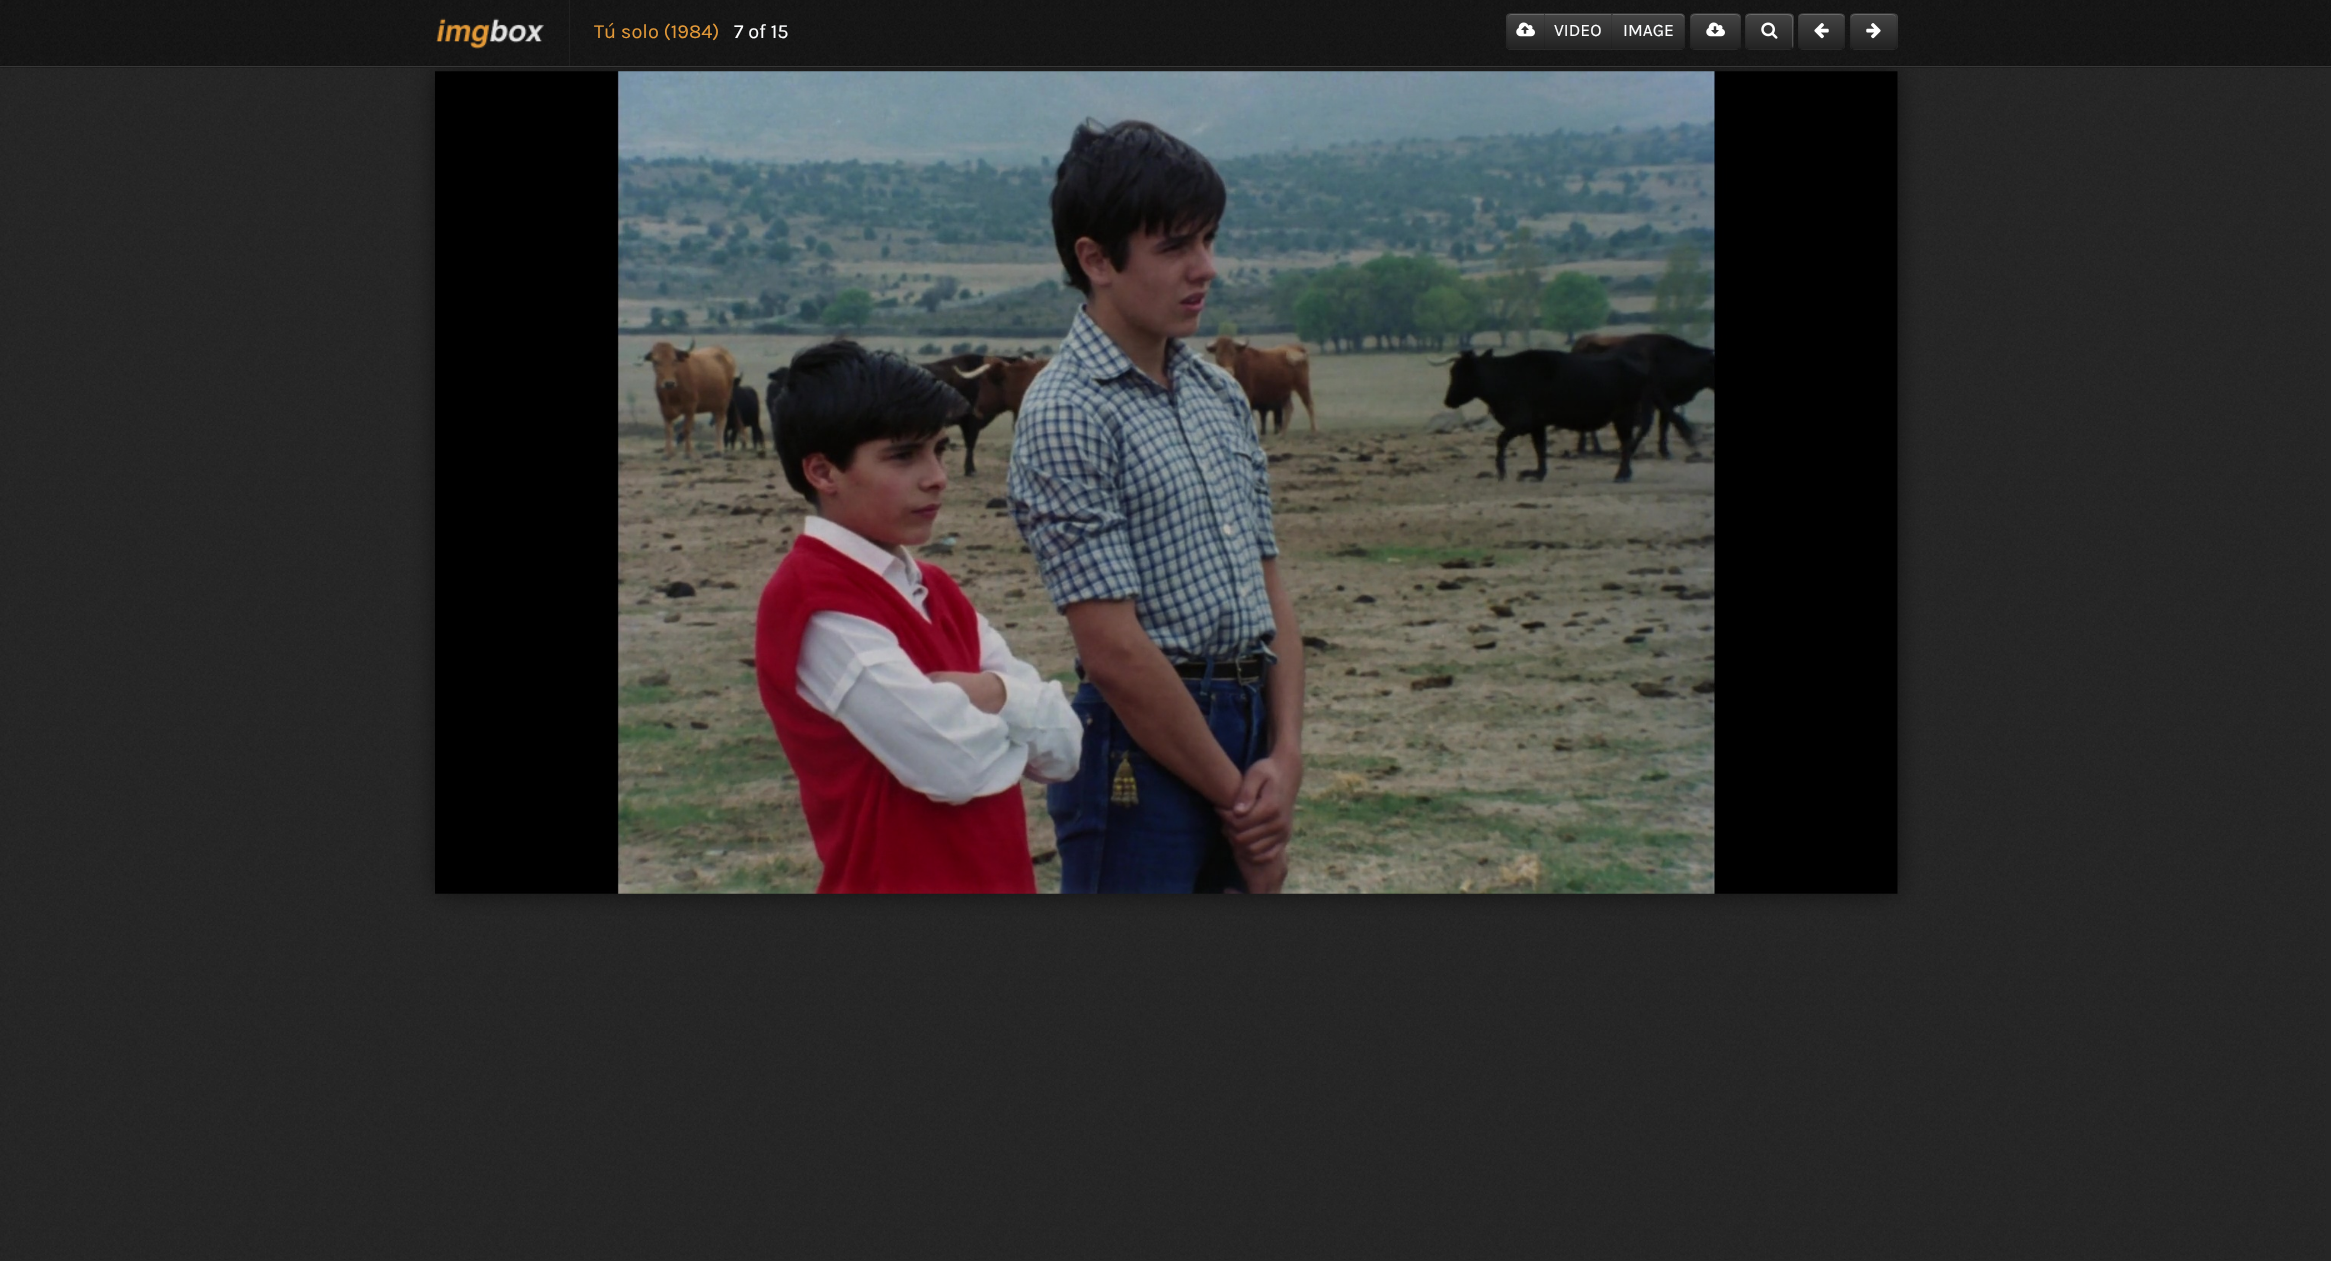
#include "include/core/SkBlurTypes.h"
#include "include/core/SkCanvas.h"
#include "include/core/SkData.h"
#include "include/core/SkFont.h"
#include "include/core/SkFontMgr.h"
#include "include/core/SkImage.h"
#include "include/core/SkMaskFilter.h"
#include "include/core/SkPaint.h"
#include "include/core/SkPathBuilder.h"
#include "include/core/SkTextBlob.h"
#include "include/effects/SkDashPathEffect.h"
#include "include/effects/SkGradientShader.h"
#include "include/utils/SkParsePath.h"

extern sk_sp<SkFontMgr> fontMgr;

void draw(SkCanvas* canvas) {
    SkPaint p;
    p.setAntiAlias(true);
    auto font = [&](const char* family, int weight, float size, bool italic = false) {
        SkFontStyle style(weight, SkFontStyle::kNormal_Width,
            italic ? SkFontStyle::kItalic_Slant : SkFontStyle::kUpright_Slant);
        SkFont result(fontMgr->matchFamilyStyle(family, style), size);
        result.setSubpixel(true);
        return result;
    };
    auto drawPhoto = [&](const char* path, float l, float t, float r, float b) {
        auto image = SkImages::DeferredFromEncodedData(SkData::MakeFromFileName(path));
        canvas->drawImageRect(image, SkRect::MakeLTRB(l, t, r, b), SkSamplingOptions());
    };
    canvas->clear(0xFF262626);
    drawPhoto("media/1.png", 0, 67, 2326, 1260);
    p.setColor(0xFF111111);
    p.setMaskFilter(SkMaskFilter::MakeBlur(kNormal_SkBlurStyle, 12.5f));
    canvas->drawRect(SkRect::MakeLTRB(435, 71, 1898, 894), p);
    p.setMaskFilter(nullptr);
    drawPhoto("media/2.png", 0, 0, 2331, 68);
    p.setColor(0xFF373737);
    canvas->drawRect(SkRect::MakeLTRB(0, 66, 2331, 67), p);
    drawPhoto("media/3.png", 436, 18, 544, 49);
    p.setColor(0xFF202020);
    canvas->drawRect(SkRect::MakeLTRB(569, 0, 570, 66), p);
    auto font1 = font("Karla", 400, 20);
    p.setColor(0xFFE39938);
    canvas->drawString("Tú solo (1984)", 594, 38, font1, p);
    p.setColor(0xFFFDFEFF);
    canvas->drawString("7 of 15", 734, 38, font1, p);
    p.setColor(0xFF363636);
    canvas->drawPath(SkPathBuilder().moveTo(1511, 13).lineTo(1545, 13).lineTo(1545, 50).lineTo(1511, 50).cubicTo(1508, 50, 1506, 48, 1506, 45).lineTo(1506, 18).cubicTo(1506, 15, 1508, 13, 1511, 13).close().detach(), p);
    canvas->save();
    canvas->clipPath(SkPathBuilder().moveTo(1511, 13).lineTo(1545, 13).lineTo(1545, 50).lineTo(1511, 50).cubicTo(1508, 50, 1506, 48, 1506, 45).lineTo(1506, 18).cubicTo(1506, 15, 1508, 13, 1511, 13).close().detach(), true);
    {
        const SkColor colors[] = {0xFF444444, 0xFF222222};
        const float stops[] = {0, 1};
        const SkPoint ends[] = {{1526, 14}, {1526, 49}};
        p.setShader(SkGradientShader::MakeLinear(ends, colors, stops, 2, SkTileMode::kClamp));
        p.setAlpha(255);
    }
    canvas->drawRect(SkRect::MakeLTRB(1506, 14, 1544, 49), p);
    canvas->restore();
    p.setShader(nullptr);
    p.setColor(0xFF696969);
    canvas->drawPath(SkPathBuilder().moveTo(1511, 15).lineTo(1544, 15).lineTo(1544, 14).lineTo(1512, 14).cubicTo(1510, 14, 1508, 16, 1508, 18).lineTo(1508, 19).cubicTo(1508, 17, 1509, 15, 1511, 15).close().detach(), p);
    p.setColor(0x1A000000);
    canvas->drawPath(SkPathBuilder().moveTo(1511, 12.5f).cubicTo(1510, 12.5f, 1508.5f, 13, 1507.5f, 14).lineTo(1508.5f, 15).cubicTo(1509, 14.5f, 1510, 14, 1511, 14).lineTo(1543.5f, 14).lineTo(1545, 12.5f).close().detach(), p);
    p.setColor(0x40000000);
    canvas->drawPath(SkPathBuilder().moveTo(1545, 50).lineTo(1544, 49).lineTo(1511, 49).cubicTo(1510, 49, 1509, 48.5f, 1508.5f, 48).lineTo(1507.5f, 48.5f).cubicTo(1508.5f, 49.5f, 1510, 50, 1511, 50).close().detach(), p);
    p.setColor(0x1A000000);
    canvas->drawPath(SkPathBuilder().moveTo(1506, 16).lineTo(1507.5f, 14).lineTo(1508.5f, 15).cubicTo(1508, 15.5f, 1507.5f, 16.5f, 1507.5f, 17.5f).lineTo(1507.5f, 45).cubicTo(1507.5f, 46, 1508, 47, 1508.5f, 48).lineTo(1507.5f, 48.5f).lineTo(1506, 46.5f).close().detach(), p);
    drawPhoto("media/4.png", 1516, 22, 1535, 37);
    p.setColor(0xFF363636);
    canvas->drawRect(SkRect::MakeLTRB(1544, 13, 1611, 50), p);
    {
        const SkColor colors[] = {0xFF444444, 0xFF222222};
        const float stops[] = {0, 1};
        const SkPoint ends[] = {{1578, 14}, {1578, 49}};
        p.setShader(SkGradientShader::MakeLinear(ends, colors, stops, 2, SkTileMode::kClamp));
        p.setAlpha(255);
    }
    canvas->drawRect(SkRect::MakeLTRB(1544, 14, 1611, 49), p);
    p.setShader(nullptr);
    p.setColor(0xFF696969);
    canvas->drawRect(SkRect::MakeLTRB(1545, 14, 1611, 15), p);
    p.setColor(0x1A000000);
    canvas->drawPath(SkPathBuilder().moveTo(1544, 12).lineTo(1612, 12).lineTo(1611, 14).lineTo(1545, 14).close().detach(), p);
    p.setColor(0xFF282828);
    canvas->drawPath(SkPathBuilder().moveTo(1612, 50).lineTo(1544, 50).lineTo(1545, 49).lineTo(1611, 49).close().detach(), p);
    p.setColor(0x1A000000);
    canvas->drawPath(SkPathBuilder().moveTo(1544, 50).lineTo(1544, 12.5f).lineTo(1545, 14).lineTo(1545, 49).close().detach(), p);
    auto font2 = font("Karla", 400, 17.5f);
    p.setColor(0xFFFDFEFF);
    canvas->drawString("VIDEO", 1554, 36, font2, p);
    p.setColor(0xFF363636);
    canvas->drawPath(SkPathBuilder().moveTo(1611, 13).lineTo(1680, 13).cubicTo(1683, 13, 1685, 15, 1685, 18).lineTo(1685, 45).cubicTo(1685, 48, 1683, 50, 1680, 50).lineTo(1611, 50).close().detach(), p);
    canvas->save();
    canvas->clipPath(SkPathBuilder().moveTo(1611, 13).lineTo(1680, 13).cubicTo(1683, 13, 1685, 15, 1685, 18).lineTo(1685, 45).cubicTo(1685, 48, 1683, 50, 1680, 50).lineTo(1611, 50).close().detach(), true);
    {
        const SkColor colors[] = {0xFF444444, 0xFF222222};
        const float stops[] = {0, 1};
        const SkPoint ends[] = {{1648, 14}, {1648, 49}};
        p.setShader(SkGradientShader::MakeLinear(ends, colors, stops, 2, SkTileMode::kClamp));
        p.setAlpha(255);
    }
    canvas->drawRect(SkRect::MakeLTRB(1611, 14, 1685, 49), p);
    canvas->restore();
    p.setShader(nullptr);
    p.setColor(0xFF696969);
    canvas->drawPath(SkPathBuilder().moveTo(1613, 14).lineTo(1613, 15).lineTo(1680, 15).cubicTo(1682, 15, 1684, 17, 1684, 19).cubicTo(1684, 16, 1683, 14, 1680, 14).close().detach(), p);
    p.setColor(0x1A000000);
    canvas->drawPath(SkPathBuilder().moveTo(1611, 12).lineTo(1682, 12).lineTo(1684, 14).lineTo(1683, 15).lineTo(1680, 14).lineTo(1613, 14).close().detach(), p);
    canvas->drawPath(SkPathBuilder().moveTo(1685, 45).lineTo(1685, 18).cubicTo(1685, 16.5f, 1684.5f, 15, 1683.5f, 14).lineTo(1682.5f, 15).cubicTo(1683.5f, 15.5f, 1684, 16.5f, 1684, 18).lineTo(1684, 45).cubicTo(1684, 46, 1683.5f, 47, 1683, 48).lineTo(1683.5f, 48.5f).cubicTo(1684.5f, 48, 1685, 46.5f, 1685, 45).close().detach(), p);
    p.setColor(0x40000000);
    canvas->drawPath(SkPathBuilder().moveTo(1611, 50).lineTo(1681, 50).lineTo(1684, 49).lineTo(1683, 48).lineTo(1680, 49).lineTo(1612, 49).close().detach(), p);
    p.setColor(0x1A000000);
    canvas->drawPath(SkPathBuilder().moveTo(1612, 14).lineTo(1613, 14).lineTo(1611, 12.5f).lineTo(1611, 50).lineTo(1612, 49).close().detach(), p);
    p.setColor(0xFFFDFEFF);
    canvas->drawString("IMAGE", 1623, 36, font2, p);
    p.setColor(0xFF363636);
    canvas->drawRoundRect(SkRect::MakeLTRB(1690, 13, 1741, 50), 5, 5, p);
    canvas->save();
    canvas->clipPath(SkPathBuilder().moveTo(1695, 13).lineTo(1736, 13).cubicTo(1739, 13, 1741, 15, 1741, 18).lineTo(1741, 45).cubicTo(1741, 48, 1739, 50, 1736, 50).lineTo(1695, 50).cubicTo(1692, 50, 1690, 48, 1690, 45).lineTo(1690, 18).cubicTo(1690, 15, 1692, 13, 1695, 13).close().detach(), true);
    {
        const SkColor colors[] = {0xFF444444, 0xFF222222};
        const float stops[] = {0, 1};
        const SkPoint ends[] = {{1716, 14}, {1716, 49}};
        p.setShader(SkGradientShader::MakeLinear(ends, colors, stops, 2, SkTileMode::kClamp));
        p.setAlpha(255);
    }
    canvas->drawRect(SkRect::MakeLTRB(1690, 14, 1741, 49), p);
    canvas->restore();
    p.setShader(nullptr);
    p.setColor(0xFF696969);
    canvas->drawPath(SkPathBuilder().moveTo(1695, 15).lineTo(1736, 15).cubicTo(1738, 15, 1740, 17, 1740, 19).cubicTo(1740, 13, 1734, 14, 1729, 14).lineTo(1702, 14).cubicTo(1697, 14, 1691, 13, 1691, 19).cubicTo(1691, 17, 1693, 15, 1695, 15).close().detach(), p);
    p.setStyle(SkPaint::kStroke_Style);
    p.setStrokeWidth(1.2f);
    p.setColor(0x40000000);
    canvas->drawPath(SkPathBuilder().moveTo(1739.5f, 48).cubicTo(1738.5f, 49, 1737.5f, 49.5f, 1736, 49.5f).lineTo(1695, 49.5f).cubicTo(1694, 49.5f, 1692.5f, 49, 1692, 48).detach(), p);
    p.setColor(0x1A000000);
    canvas->drawPath(SkPathBuilder().moveTo(1692, 48).cubicTo(1691, 47.5f, 1690.5f, 46, 1690.5f, 45).lineTo(1690.5f, 17.5f).cubicTo(1690.5f, 16.5f, 1691, 15, 1692, 14.5f).cubicTo(1692.5f, 13.5f, 1694, 13, 1695, 13).lineTo(1736, 13).cubicTo(1737.5f, 13, 1738.5f, 13.5f, 1739.5f, 14.5f).cubicTo(1740, 15, 1740.5f, 16.5f, 1740.5f, 17.5f).lineTo(1740.5f, 45).cubicTo(1740.5f, 46, 1740, 47.5f, 1739.5f, 48).detach(), p);
    drawPhoto("media/5.png", 1706, 22, 1725, 37);
    p.setStyle(SkPaint::kFill_Style);
    p.setColor(0xFF363636);
    canvas->drawRoundRect(SkRect::MakeLTRB(1745, 13, 1794, 50), 5, 5, p);
    canvas->save();
    canvas->clipPath(SkPathBuilder().moveTo(1750, 13).lineTo(1789, 13).cubicTo(1792, 13, 1794, 15, 1794, 18).lineTo(1794, 45).cubicTo(1794, 48, 1792, 50, 1789, 50).lineTo(1750, 50).cubicTo(1747, 50, 1745, 48, 1745, 45).lineTo(1745, 18).cubicTo(1745, 15, 1747, 13, 1750, 13).close().detach(), true);
    {
        const SkColor colors[] = {0xFF444444, 0xFF222222};
        const float stops[] = {0, 1};
        const SkPoint ends[] = {{1769, 14}, {1769, 49}};
        p.setShader(SkGradientShader::MakeLinear(ends, colors, stops, 2, SkTileMode::kClamp));
        p.setAlpha(255);
    }
    canvas->drawRect(SkRect::MakeLTRB(1745, 14, 1794, 49), p);
    canvas->restore();
    p.setShader(nullptr);
    p.setColor(0x33FFFFFF);
    canvas->drawPath(SkPathBuilder().moveTo(1750, 15).lineTo(1782, 15).cubicTo(1794, 15, 1792, 16, 1792, 28).lineTo(1792, 48).cubicTo(1794, 46, 1793, 43, 1793, 40).lineTo(1793, 32).cubicTo(1793, 12, 1796, 14, 1776, 14).lineTo(1756, 14).cubicTo(1752, 14, 1746, 13, 1746, 19).cubicTo(1746, 17, 1748, 15, 1750, 15).close().detach(), p);
    p.setStyle(SkPaint::kStroke_Style);
    p.setColor(0x40000000);
    canvas->drawPath(SkPathBuilder().moveTo(1792, 48).cubicTo(1791, 49, 1790, 49.5f, 1789, 49.5f).lineTo(1750, 49.5f).cubicTo(1749, 49.5f, 1747.5f, 49, 1747, 48).detach(), p);
    p.setColor(0x1A000000);
    canvas->drawPath(SkPathBuilder().moveTo(1747, 48).cubicTo(1746, 47.5f, 1745.5f, 46, 1745.5f, 45).lineTo(1745.5f, 17.5f).cubicTo(1745.5f, 16.5f, 1746, 15, 1747, 14.5f).cubicTo(1747.5f, 13.5f, 1749, 13, 1750, 13).lineTo(1789, 13).cubicTo(1790, 13, 1791, 13.5f, 1792, 14.5f).cubicTo(1792.5f, 15, 1793, 16.5f, 1793, 17.5f).lineTo(1793, 45).cubicTo(1793, 46, 1792.5f, 47.5f, 1792, 48).detach(), p);
    drawPhoto("media/6.png", 1761, 22, 1778, 39);
    p.setStyle(SkPaint::kFill_Style);
    p.setColor(0xFF363636);
    canvas->drawRoundRect(SkRect::MakeLTRB(1798, 13, 1845, 50), 5, 5, p);
    canvas->save();
    canvas->clipPath(SkPathBuilder().moveTo(1803, 13).lineTo(1840, 13).cubicTo(1843, 13, 1845, 15, 1845, 18).lineTo(1845, 45).cubicTo(1845, 48, 1843, 50, 1840, 50).lineTo(1803, 50).cubicTo(1800, 50, 1798, 48, 1798, 45).lineTo(1798, 18).cubicTo(1798, 15, 1800, 13, 1803, 13).close().detach(), true);
    {
        const SkColor colors[] = {0xFF444444, 0xFF222222};
        const float stops[] = {0, 1};
        const SkPoint ends[] = {{1821, 14}, {1821, 49}};
        p.setShader(SkGradientShader::MakeLinear(ends, colors, stops, 2, SkTileMode::kClamp));
        p.setAlpha(255);
    }
    canvas->drawRect(SkRect::MakeLTRB(1798, 14, 1845, 49), p);
    canvas->restore();
    p.setShader(nullptr);
    p.setColor(0xFF696969);
    canvas->drawPath(SkPathBuilder().moveTo(1802, 15).lineTo(1840, 15).cubicTo(1842, 15, 1844, 17, 1844, 19).cubicTo(1844, 13, 1839, 14, 1834, 14).lineTo(1809, 14).cubicTo(1804, 14, 1799, 13, 1799, 19).cubicTo(1799, 17, 1800, 15, 1802, 15).close().detach(), p);
    p.setStyle(SkPaint::kStroke_Style);
    p.setColor(0x40000000);
    canvas->drawPath(SkPathBuilder().moveTo(1843, 48).cubicTo(1842.5f, 49, 1841, 49.5f, 1840, 49.5f).lineTo(1802.5f, 49.5f).cubicTo(1801.5f, 49.5f, 1800, 49, 1799.5f, 48).detach(), p);
    p.setColor(0x1A000000);
    canvas->drawPath(SkPathBuilder().moveTo(1799.5f, 48).cubicTo(1797.5f, 46, 1798, 43, 1798, 40.5f).lineTo(1798, 31).cubicTo(1798, 8.5f, 1796.5f, 13, 1821, 13).cubicTo(1846, 13, 1844.5f, 8.5f, 1844.5f, 31).lineTo(1844.5f, 40.5f).cubicTo(1844.5f, 43, 1845, 46, 1843, 48).detach(), p);
    drawPhoto("media/7.png", 1814, 23, 1829, 39);
    p.setStyle(SkPaint::kFill_Style);
    p.setColor(0xFF363636);
    canvas->drawRoundRect(SkRect::MakeLTRB(1850, 13, 1898, 50), 5, 5, p);
    canvas->save();
    canvas->clipPath(SkPathBuilder().moveTo(1855, 13).lineTo(1893, 13).cubicTo(1896, 13, 1898, 15, 1898, 18).lineTo(1898, 45).cubicTo(1898, 48, 1896, 50, 1893, 50).lineTo(1855, 50).cubicTo(1852, 50, 1850, 48, 1850, 45).lineTo(1850, 18).cubicTo(1850, 15, 1852, 13, 1855, 13).close().detach(), true);
    {
        const SkColor colors[] = {0xFF444444, 0xFF222222};
        const float stops[] = {0, 1};
        const SkPoint ends[] = {{1874, 14}, {1874, 49}};
        p.setShader(SkGradientShader::MakeLinear(ends, colors, stops, 2, SkTileMode::kClamp));
        p.setAlpha(255);
    }
    canvas->drawRect(SkRect::MakeLTRB(1850, 14, 1898, 49), p);
    canvas->restore();
    p.setShader(nullptr);
    p.setColor(0xFF696969);
    canvas->drawPath(SkPathBuilder().moveTo(1855, 15).lineTo(1892, 15).cubicTo(1895, 15, 1896, 17, 1896, 19).cubicTo(1896, 13, 1891, 14, 1886, 14).lineTo(1861, 14).cubicTo(1856, 14, 1851, 13, 1851, 19).cubicTo(1851, 17, 1853, 15, 1855, 15).close().detach(), p);
    p.setStyle(SkPaint::kStroke_Style);
    p.setColor(0x40000000);
    canvas->drawPath(SkPathBuilder().moveTo(1895.5f, 48).cubicTo(1895, 49, 1893.5f, 49.5f, 1892.5f, 49.5f).lineTo(1855, 49.5f).cubicTo(1854, 49.5f, 1852.5f, 49, 1852, 48).detach(), p);
    p.setColor(0x1A000000);
    canvas->drawPath(SkPathBuilder().moveTo(1852, 48).cubicTo(1850, 46, 1850.5f, 43, 1850.5f, 40.5f).lineTo(1850.5f, 31).cubicTo(1850.5f, 8.5f, 1849, 13, 1874, 13).cubicTo(1898.5f, 13, 1897, 8.5f, 1897, 31).lineTo(1897, 40.5f).cubicTo(1897, 43, 1897.5f, 46, 1895.5f, 48).detach(), p);
    drawPhoto("media/8.png", 1866, 23, 1881, 39);
    drawPhoto("media/9.png", 435, 71, 1898, 894);
}
